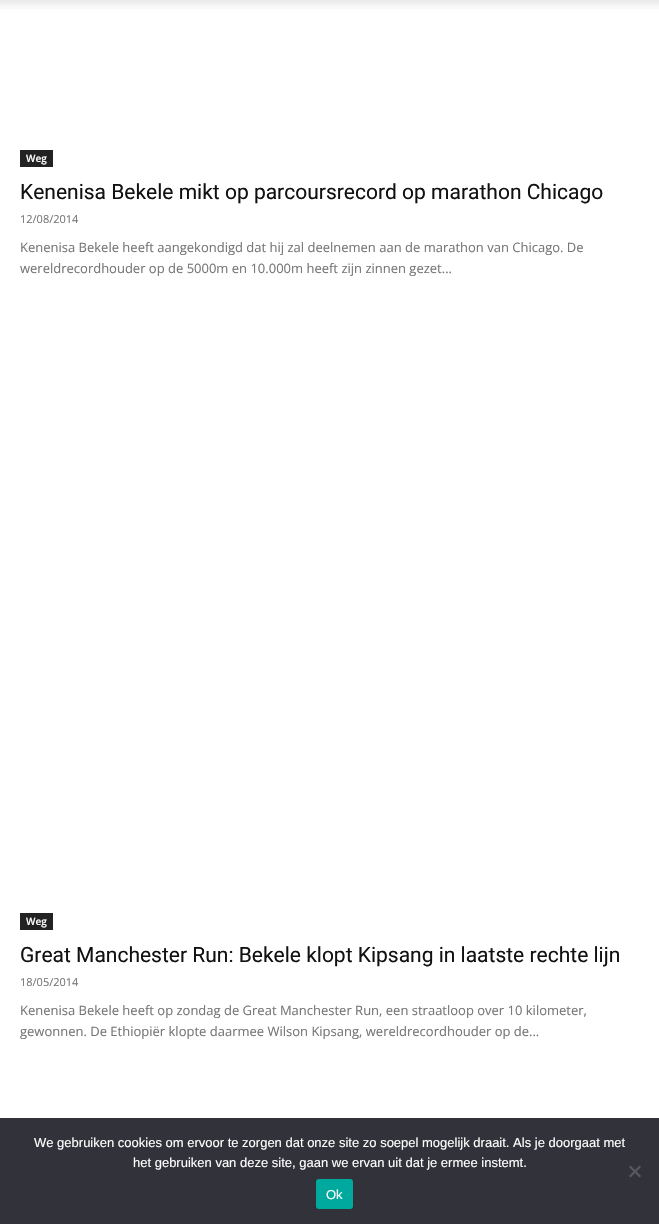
#include "include/core/SkBlurTypes.h"
#include "include/core/SkCanvas.h"
#include "include/core/SkData.h"
#include "include/core/SkFont.h"
#include "include/core/SkFontMgr.h"
#include "include/core/SkImage.h"
#include "include/core/SkMaskFilter.h"
#include "include/core/SkPaint.h"
#include "include/core/SkPathBuilder.h"
#include "include/core/SkTextBlob.h"
#include "include/effects/SkDashPathEffect.h"
#include "include/effects/SkGradientShader.h"
#include "include/utils/SkParsePath.h"

extern sk_sp<SkFontMgr> fontMgr;

void draw(SkCanvas* canvas) {
    SkPaint p;
    p.setAntiAlias(true);
    auto font = [&](const char* family, int weight, float size, bool italic = false) {
        SkFontStyle style(weight, SkFontStyle::kNormal_Width,
            italic ? SkFontStyle::kItalic_Slant : SkFontStyle::kUpright_Slant);
        SkFont result(fontMgr->matchFamilyStyle(family, style), size);
        result.setSubpixel(true);
        return result;
    };
    auto drawPhoto = [&](const char* path, float l, float t, float r, float b) {
        auto image = SkImages::DeferredFromEncodedData(SkData::MakeFromFileName(path));
        canvas->drawImageRect(image, SkRect::MakeLTRB(l, t, r, b), SkSamplingOptions());
    };
    canvas->clear(0xFFFFFFFF);
    drawPhoto("media/1.png", 0, 0, 659, 9);
    p.setColor(0xFF222222);
    canvas->drawRect(SkRect::MakeLTRB(20, 150, 53, 167), p);
    auto font1 = font("Open Sans", 600, 10);
    p.setColor(0xFFFFFFFF);
    canvas->drawString("Weg", 26, 162, font1, p);
    auto font2 = font("Roboto", 400, 21);
    p.setColor(0xFF111111);
    canvas->drawString("Kenenisa Bekele mikt op parcoursrecord op marathon Chicago", 20, 199, font2, p);
    auto font3 = font("Open Sans", 400, 11);
    p.setColor(0xFF767676);
    canvas->drawString("12/08/2014", 20, 223, font3, p);
    auto font4 = font("Open Sans", 400, 13);
    canvas->drawString("Kenenisa Bekele heeft aangekondigd dat hij zal deelnemen aan de marathon van Chicago. De", 20, 252, font4, p);
    canvas->drawString("wereldrecordhouder op de 5000m en 10.000m heeft zijn zinnen gezet...", 20, 273, font4, p);
    p.setColor(0xFF222222);
    canvas->drawRect(SkRect::MakeLTRB(20, 913, 53, 930), p);
    p.setColor(0xFFFFFFFF);
    canvas->drawString("Weg", 26, 925, font1, p);
    p.setColor(0xFF111111);
    canvas->drawString("Great Manchester Run: Bekele klopt Kipsang in laatste rechte lijn", 20, 962, font2, p);
    p.setColor(0xFF767676);
    canvas->drawString("18/05/2014", 20, 986, font3, p);
    canvas->drawString("Kenenisa Bekele heeft op zondag de Great Manchester Run, een straatloop over 10 kilometer,", 20, 1015, font4, p);
    canvas->drawString("gewonnen. De Ethiopiër klopte daarmee Wilson Kipsang, wereldrecordhouder op de...", 20, 1036, font4, p);
    p.setColor(0xFF32323A);
    canvas->drawRect(SkRect::MakeLTRB(0, 1118, 659, 1224), p);
    auto font5 = font("Liberation Sans", 400, 13);
    p.setColor(0xFFFFFFFF);
    canvas->drawString("We gebruiken cookies om ervoor te zorgen dat onze site zo soepel mogelijk draait. Als je doorgaat met", 34, 1147, font5, p);
    canvas->drawString("het gebruiken van deze site, gaan we ervan uit dat je ermee instemt.", 133, 1167, font5, p);
    p.setColor(0xFF59595D);
    canvas->drawPath(SkPathBuilder().moveTo(639.5f, 1165.5f).lineTo(641, 1167).lineTo(630.5f, 1177.5f).lineTo(629, 1176).close().detach(), p);
    canvas->drawPath(SkPathBuilder().moveTo(629, 1167).lineTo(630.5f, 1165.5f).lineTo(641, 1176).lineTo(639.5f, 1177.5f).close().detach(), p);
    p.setColor(0xFF00A99D);
    canvas->drawRoundRect(SkRect::MakeLTRB(316, 1179, 353, 1209), 3, 3, p);
    p.setColor(0xFFFFFFFF);
    canvas->drawString("Ok", 326, 1199, font5, p);
}
